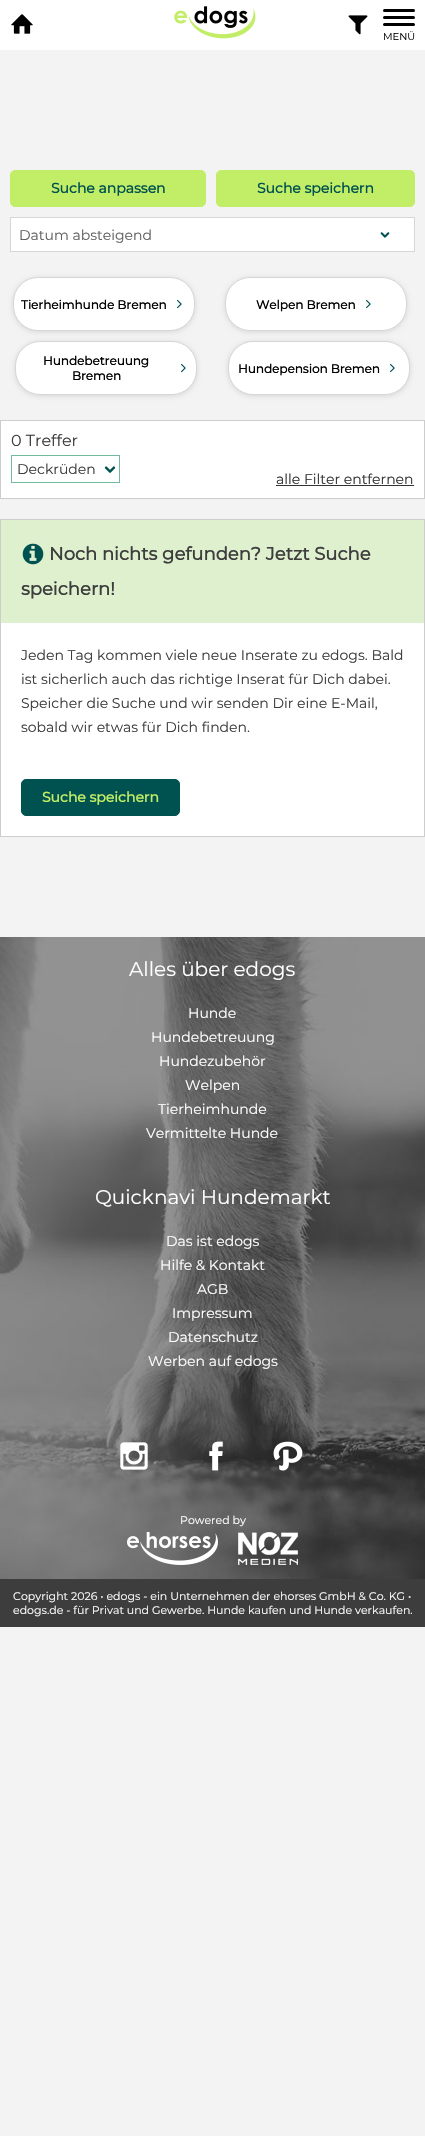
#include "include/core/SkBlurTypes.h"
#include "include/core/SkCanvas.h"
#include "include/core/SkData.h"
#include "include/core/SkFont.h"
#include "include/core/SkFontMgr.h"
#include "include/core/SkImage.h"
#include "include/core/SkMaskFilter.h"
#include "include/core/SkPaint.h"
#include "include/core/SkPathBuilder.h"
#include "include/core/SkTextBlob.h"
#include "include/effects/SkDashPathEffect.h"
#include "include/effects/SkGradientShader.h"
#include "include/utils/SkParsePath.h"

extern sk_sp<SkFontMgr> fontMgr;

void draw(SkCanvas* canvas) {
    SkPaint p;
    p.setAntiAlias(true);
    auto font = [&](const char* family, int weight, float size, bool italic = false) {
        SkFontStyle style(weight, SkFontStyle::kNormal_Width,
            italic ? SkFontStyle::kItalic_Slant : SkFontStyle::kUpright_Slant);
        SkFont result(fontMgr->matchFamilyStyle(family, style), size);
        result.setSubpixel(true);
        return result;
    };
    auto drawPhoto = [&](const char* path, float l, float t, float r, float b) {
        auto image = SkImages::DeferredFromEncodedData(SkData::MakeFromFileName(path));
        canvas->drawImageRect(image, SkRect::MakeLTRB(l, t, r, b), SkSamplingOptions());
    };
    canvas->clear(0xFFF3F3F3);
    p.setColor(0xFFFFFFFF);
    canvas->drawRect(SkRect::MakeLTRB(0, 0, 425, 50), p);
    drawPhoto("media/1.png", 11, 14, 33, 34);
    drawPhoto("media/2.png", 174, 6, 256, 39);
    drawPhoto("media/3.png", 348, 15, 368, 35);
    p.setColor(0xFF000000);
    canvas->drawRoundRect(SkRect::MakeLTRB(383, 9, 415, 12), 1.5f, 1.5f, p);
    canvas->drawRoundRect(SkRect::MakeLTRB(383, 16, 415, 19), 1.5f, 1.5f, p);
    canvas->drawRoundRect(SkRect::MakeLTRB(383, 23, 415, 26), 1.5f, 1.5f, p);
    auto font1 = font("Montserrat", 100, 10);
    canvas->drawString("MENÜ", 383, 40, font1, p);
    p.setColor(0xFFC2ED66);
    canvas->drawRoundRect(SkRect::MakeLTRB(10.5f, 170.5f, 205.5f, 206.5f), 4.5f, 4.5f, p);
    p.setStyle(SkPaint::kStroke_Style);
    p.setStrokeWidth(1);
    canvas->drawRoundRect(SkRect::MakeLTRB(10.5f, 170.5f, 205.5f, 206.5f), 4.5f, 4.5f, p);
    auto font2 = font("Montserrat", 700, 14);
    p.setStyle(SkPaint::kFill_Style);
    p.setColor(0xFF005250);
    canvas->drawString("Suche anpassen", 51, 193, font2, p);
    p.setColor(0xFFC2ED66);
    canvas->drawRoundRect(SkRect::MakeLTRB(216.5f, 170.5f, 414.5f, 206.5f), 4.5f, 4.5f, p);
    p.setStyle(SkPaint::kStroke_Style);
    canvas->drawRoundRect(SkRect::MakeLTRB(216.5f, 170.5f, 414.5f, 206.5f), 4.5f, 4.5f, p);
    p.setStyle(SkPaint::kFill_Style);
    p.setColor(0xFF005250);
    canvas->drawString("Suche speichern", 257, 193, font2, p);
    p.setColor(0xFFFFFFFF);
    canvas->drawRect(SkRect::MakeLTRB(11, 218, 414, 251), p);
    drawPhoto("media/4.png", 380, 232, 390, 238);
    p.setStyle(SkPaint::kStroke_Style);
    p.setColor(0xFFD6D6D6);
    canvas->drawRect(SkRect::MakeLTRB(10.5f, 217.5f, 414.5f, 251.5f), p);
    auto font3 = font("Montserrat", 100, 14);
    p.setStyle(SkPaint::kFill_Style);
    p.setColor(0xFF606060);
    canvas->drawString("Datum absteigend", 19, 240, font3, p);
    p.setColor(0x1F000000);
    p.setMaskFilter(SkMaskFilter::MakeBlur(kNormal_SkBlurStyle, 2.5f));
    canvas->drawRoundRect(SkRect::MakeLTRB(13, 278, 195, 332), 25, 25, p);
    p.setMaskFilter(nullptr);
    p.setColor(0xFFFFFFFF);
    canvas->drawRoundRect(SkRect::MakeLTRB(13.5f, 277.5f, 194.5f, 330.5f), 24.5f, 24.5f, p);
    p.setStyle(SkPaint::kStroke_Style);
    p.setColor(0xFFD6D6D6);
    canvas->drawRoundRect(SkRect::MakeLTRB(13.5f, 277.5f, 194.5f, 330.5f), 24.5f, 24.5f, p);
    auto font4 = font("Montserrat", 700, 12);
    p.setStyle(SkPaint::kFill_Style);
    p.setColor(0xFF000000);
    canvas->drawString("Tierheimhunde Bremen", 21, 309, font4, p);
    drawPhoto("media/5.png", 177, 299, 182, 309);
    p.setColor(0x1F000000);
    p.setMaskFilter(SkMaskFilter::MakeBlur(kNormal_SkBlurStyle, 2.5f));
    canvas->drawRoundRect(SkRect::MakeLTRB(225, 278, 407, 332), 25, 25, p);
    p.setMaskFilter(nullptr);
    p.setColor(0xFFFFFFFF);
    canvas->drawRoundRect(SkRect::MakeLTRB(225.5f, 277.5f, 406.5f, 330.5f), 24.5f, 24.5f, p);
    p.setStyle(SkPaint::kStroke_Style);
    p.setColor(0xFFD6D6D6);
    canvas->drawRoundRect(SkRect::MakeLTRB(225.5f, 277.5f, 406.5f, 330.5f), 24.5f, 24.5f, p);
    p.setStyle(SkPaint::kFill_Style);
    p.setColor(0xFF000000);
    canvas->drawString("Welpen Bremen", 256, 309, font4, p);
    drawPhoto("media/5.png", 366, 299, 371, 309);
    p.setColor(0x1F000000);
    p.setMaskFilter(SkMaskFilter::MakeBlur(kNormal_SkBlurStyle, 2.5f));
    canvas->drawRoundRect(SkRect::MakeLTRB(15, 342, 197, 396), 25, 25, p);
    p.setMaskFilter(nullptr);
    p.setColor(0xFFFFFFFF);
    canvas->drawRoundRect(SkRect::MakeLTRB(15.5f, 341.5f, 196.5f, 394.5f), 24.5f, 24.5f, p);
    p.setStyle(SkPaint::kStroke_Style);
    p.setColor(0xFFD6D6D6);
    canvas->drawRoundRect(SkRect::MakeLTRB(15.5f, 341.5f, 196.5f, 394.5f), 24.5f, 24.5f, p);
    p.setStyle(SkPaint::kFill_Style);
    p.setColor(0xFF000000);
    canvas->drawString("Hundebetreuung", 43, 365, font4, p);
    drawPhoto("media/5.png", 181, 363, 186, 373);
    canvas->drawString("Bremen", 72, 380, font4, p);
    p.setColor(0x1F000000);
    p.setMaskFilter(SkMaskFilter::MakeBlur(kNormal_SkBlurStyle, 2.5f));
    canvas->drawRoundRect(SkRect::MakeLTRB(228, 342, 410, 396), 25, 25, p);
    p.setMaskFilter(nullptr);
    p.setColor(0xFFFFFFFF);
    canvas->drawRoundRect(SkRect::MakeLTRB(228.5f, 341.5f, 409.5f, 394.5f), 24.5f, 24.5f, p);
    p.setStyle(SkPaint::kStroke_Style);
    p.setColor(0xFFD6D6D6);
    canvas->drawRoundRect(SkRect::MakeLTRB(228.5f, 341.5f, 409.5f, 394.5f), 24.5f, 24.5f, p);
    p.setStyle(SkPaint::kFill_Style);
    p.setColor(0xFF000000);
    canvas->drawString("Hundepension Bremen", 238, 373, font4, p);
    drawPhoto("media/5.png", 390, 363, 395, 373);
    p.setColor(0xFFFFFFFF);
    canvas->drawRect(SkRect::MakeLTRB(0.5f, 420.5f, 424.5f, 498.5f), p);
    p.setStyle(SkPaint::kStroke_Style);
    p.setColor(0xFFCDCDCD);
    canvas->drawRect(SkRect::MakeLTRB(0.5f, 420.5f, 424.5f, 498.5f), p);
    auto font5 = font("Montserrat", 100, 16);
    p.setStyle(SkPaint::kFill_Style);
    p.setColor(0xFF3D3D3D);
    canvas->drawString("0 Treffer", 11, 446, font5, p);
    p.setStyle(SkPaint::kStroke_Style);
    p.setColor(0xFF73B99B);
    canvas->drawRect(SkRect::MakeLTRB(11.5f, 455.5f, 119.5f, 482.5f), p);
    p.setStyle(SkPaint::kFill_Style);
    p.setColor(0xFF3D3D3D);
    canvas->drawString("Deckrüden", 17, 474, font3, p);
    drawPhoto("media/6.png", 104, 466, 116, 473);
    p.setColor(0xFF333333);
    canvas->drawString("alle Filter entfernen", 276, 484, font3, p);
    canvas->drawRect(SkRect::MakeLTRB(276, 485, 414, 486), p);
    p.setColor(0xFFFFFFFF);
    canvas->drawRect(SkRect::MakeLTRB(1, 623, 424, 836), p);
    p.setStyle(SkPaint::kStroke_Style);
    p.setColor(0xFFCDCDCD);
    canvas->drawRect(SkRect::MakeLTRB(0.5f, 519.5f, 424.5f, 836.5f), p);
    p.setStyle(SkPaint::kFill_Style);
    p.setColor(0xFFDEF0CE);
    canvas->drawRect(SkRect::MakeLTRB(1, 520, 424, 623), p);
    drawPhoto("media/7.png", 22, 543, 44, 565);
    auto font6 = font("Montserrat", 700, 18);
    p.setColor(0xFF3D3D3D);
    canvas->drawString("Noch nichts gefunden? Jetzt Suche", 49, 560, font6, p);
    canvas->drawString("speichern!", 21, 595, font6, p);
    {
        const struct { const char* s; float x, y; } items[] = {
            {"Jeden Tag kommen viele neue Inserate zu edogs. Bald", 21, 660},
            {"ist sicherlich auch das richtige Inserat für Dich dabei.", 21, 684},
            {"Speicher die Suche und wir senden Dir eine E-Mail,", 21, 708},
            {"sobald wir etwas für Dich finden.", 21, 732},
        };
        for (auto [s, x, y] : items) {
            canvas->drawString(s, x, y, font3, p);
        }
    }
    p.setColor(0xFF005250);
    canvas->drawRoundRect(SkRect::MakeLTRB(21.5f, 779.5f, 179.5f, 815.5f), 4.5f, 4.5f, p);
    p.setStyle(SkPaint::kStroke_Style);
    canvas->drawRoundRect(SkRect::MakeLTRB(21.5f, 779.5f, 179.5f, 815.5f), 4.5f, 4.5f, p);
    p.setStyle(SkPaint::kFill_Style);
    p.setColor(0xFFC2ED66);
    canvas->drawString("Suche speichern", 42, 802, font2, p);
    drawPhoto("media/8.png", 0, 937, 425, 1579);
    auto font7 = font("Montserrat", 100, 20);
    p.setColor(0xFFFFFFFF);
    canvas->drawString("Alles über edogs", 129, 976, font7, p);
    {
        const struct { const char* s; float x, y; } items[] = {
            {"Hunde", 188, 1018},
            {"Hundebetreuung", 151, 1042},
            {"Hundezubehör", 159, 1066},
            {"Welpen", 185, 1090},
            {"Tierheimhunde", 158, 1114},
            {"Vermittelte Hunde", 146, 1138},
        };
        for (auto [s, x, y] : items) {
            canvas->drawString(s, x, y, font3, p);
        }
    }
    canvas->drawString("Quicknavi Hundemarkt", 95, 1204, font7, p);
    {
        const struct { const char* s; float x, y; } items[] = {
            {"Das ist edogs", 166, 1246},
            {"Hilfe & Kontakt", 160, 1270},
            {"AGB", 197, 1294},
            {"Impressum", 172, 1318},
            {"Datenschutz", 168, 1342},
            {"Werben auf edogs", 148, 1366},
        };
        for (auto [s, x, y] : items) {
            canvas->drawString(s, x, y, font3, p);
        }
    }
    drawPhoto("media/9.png", 120, 1442, 148, 1470);
    drawPhoto("media/10.png", 209, 1441, 223, 1471);
    drawPhoto("media/11.png", 273, 1441, 303, 1471);
    auto font8 = font("Montserrat", 100, 11);
    canvas->drawString("Powered by", 180, 1524, font8, p);
    drawPhoto("media/12.png", 127, 1532, 218, 1565);
    drawPhoto("media/13.png", 238, 1532, 298, 1565);
    p.setColor(0xFF3D3D3D);
    canvas->drawRect(SkRect::MakeLTRB(0, 1579, 425, 1627), p);
    p.setColor(0xFFFFFFFF);
    canvas->drawString("Copyright 2026 • edogs - ein Unternehmen der ehorses GmbH & Co. KG •", 13, 1600, font8, p);
    canvas->drawString("edogs.de - für Privat und Gewerbe. Hunde kaufen und Hunde verkaufen.", 13, 1614, font8, p);
}
